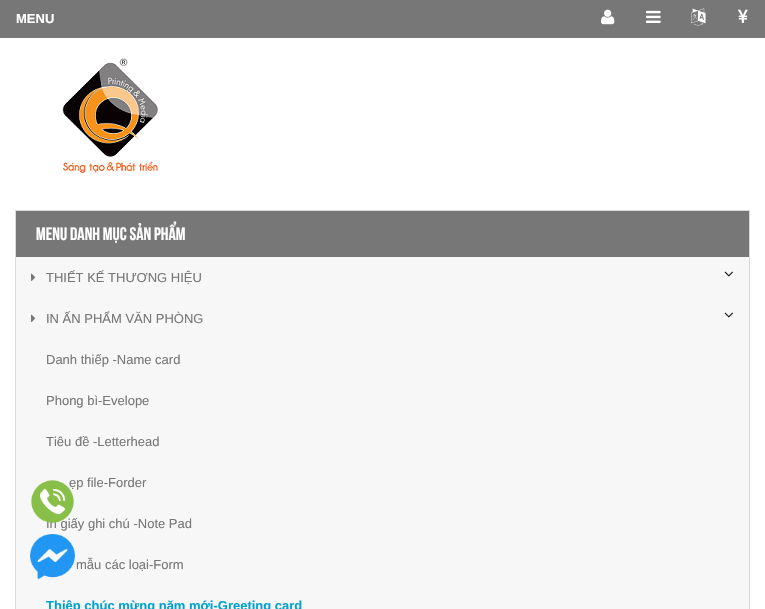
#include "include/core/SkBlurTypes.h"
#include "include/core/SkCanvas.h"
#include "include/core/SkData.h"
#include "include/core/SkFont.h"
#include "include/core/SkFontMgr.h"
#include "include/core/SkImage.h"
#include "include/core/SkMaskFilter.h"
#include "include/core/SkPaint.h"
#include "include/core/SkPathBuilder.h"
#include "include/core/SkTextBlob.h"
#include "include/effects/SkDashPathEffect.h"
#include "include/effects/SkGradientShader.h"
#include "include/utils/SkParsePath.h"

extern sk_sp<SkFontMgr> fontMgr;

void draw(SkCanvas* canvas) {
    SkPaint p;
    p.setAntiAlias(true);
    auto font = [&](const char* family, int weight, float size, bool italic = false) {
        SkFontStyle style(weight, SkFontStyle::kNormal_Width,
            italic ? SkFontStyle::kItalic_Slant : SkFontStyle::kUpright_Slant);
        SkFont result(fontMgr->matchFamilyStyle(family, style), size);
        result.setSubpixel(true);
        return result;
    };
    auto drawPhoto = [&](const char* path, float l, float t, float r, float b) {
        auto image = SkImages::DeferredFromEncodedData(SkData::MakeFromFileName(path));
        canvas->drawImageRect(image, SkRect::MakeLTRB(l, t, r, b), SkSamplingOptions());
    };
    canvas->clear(0xFFFFFFFF);
    p.setColor(0xFF777777);
    canvas->drawRect(SkRect::MakeLTRB(0, 0, 765, 38), p);
    drawPhoto("media/1.png", 601, 9, 615, 25);
    drawPhoto("media/2.png", 646, 10, 661, 23);
    drawPhoto("media/3.png", 691, 8, 706, 26);
    drawPhoto("media/4.png", 738, 9, 748, 23);
    auto font1 = font("Liberation Sans", 700, 13);
    p.setColor(0xFFFFFFFF);
    canvas->drawString("MENU", 16, 23, font1, p);
    drawPhoto("media/5.png", 62, 58, 158, 174);
    p.setColor(0xFFF7F7F7);
    canvas->drawRect(SkRect::MakeLTRB(16, 257, 749, 609), p);
    p.setStyle(SkPaint::kStroke_Style);
    p.setStrokeWidth(1);
    p.setColor(0xFFD9D9D9);
    canvas->drawRect(SkRect::MakeLTRB(15.5f, 210.5f, 749.5f, 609.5f), p);
    p.setStyle(SkPaint::kFill_Style);
    p.setColor(0xFF777777);
    canvas->drawRect(SkRect::MakeLTRB(16, 211, 749, 257), p);
    auto font2 = font("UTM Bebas", 400, 18);
    p.setColor(0xFFFFFFFF);
    canvas->drawString("MENU DANH MỤC SẢN PHẨM", 36, 240, font2, p);
    drawPhoto("media/6.png", 31, 273, 36, 281);
    auto font3 = font("Liberation Sans", 400, 13);
    p.setColor(0xFF777777);
    canvas->drawString("THIẾT KẾ THƯƠNG HIỆU", 46, 282, font3, p);
    drawPhoto("media/7.png", 724, 271, 733, 277);
    drawPhoto("media/6.png", 31, 314, 36, 322);
    canvas->drawString("IN ẤN PHẨM VĂN PHÒNG", 46, 323, font3, p);
    drawPhoto("media/7.png", 724, 312, 733, 318);
    {
        const struct { const char* s; float x, y; } items[] = {
            {"Danh thiếp -Name card", 46, 364},
            {"Phong bì-Evelope", 46, 405},
            {"Tiêu đề -Letterhead", 46, 446},
            {"ẹp file-Forder", 69, 487},
            {"In giấy ghi chú -Note Pad", 46, 528},
            {"mẫu các loại-Form", 76, 569},
        };
        for (auto [s, x, y] : items) {
            canvas->drawString(s, x, y, font3, p);
        }
    }
    p.setColor(0xFF01A2CF);
    canvas->drawString("Thiệp chúc mừng năm mới-Greeting card", 46, 610, font1, p);
    drawPhoto("media/8.png", 31, 480, 74, 523);
    drawPhoto("media/9.png", 30, 534, 75, 579);
}
